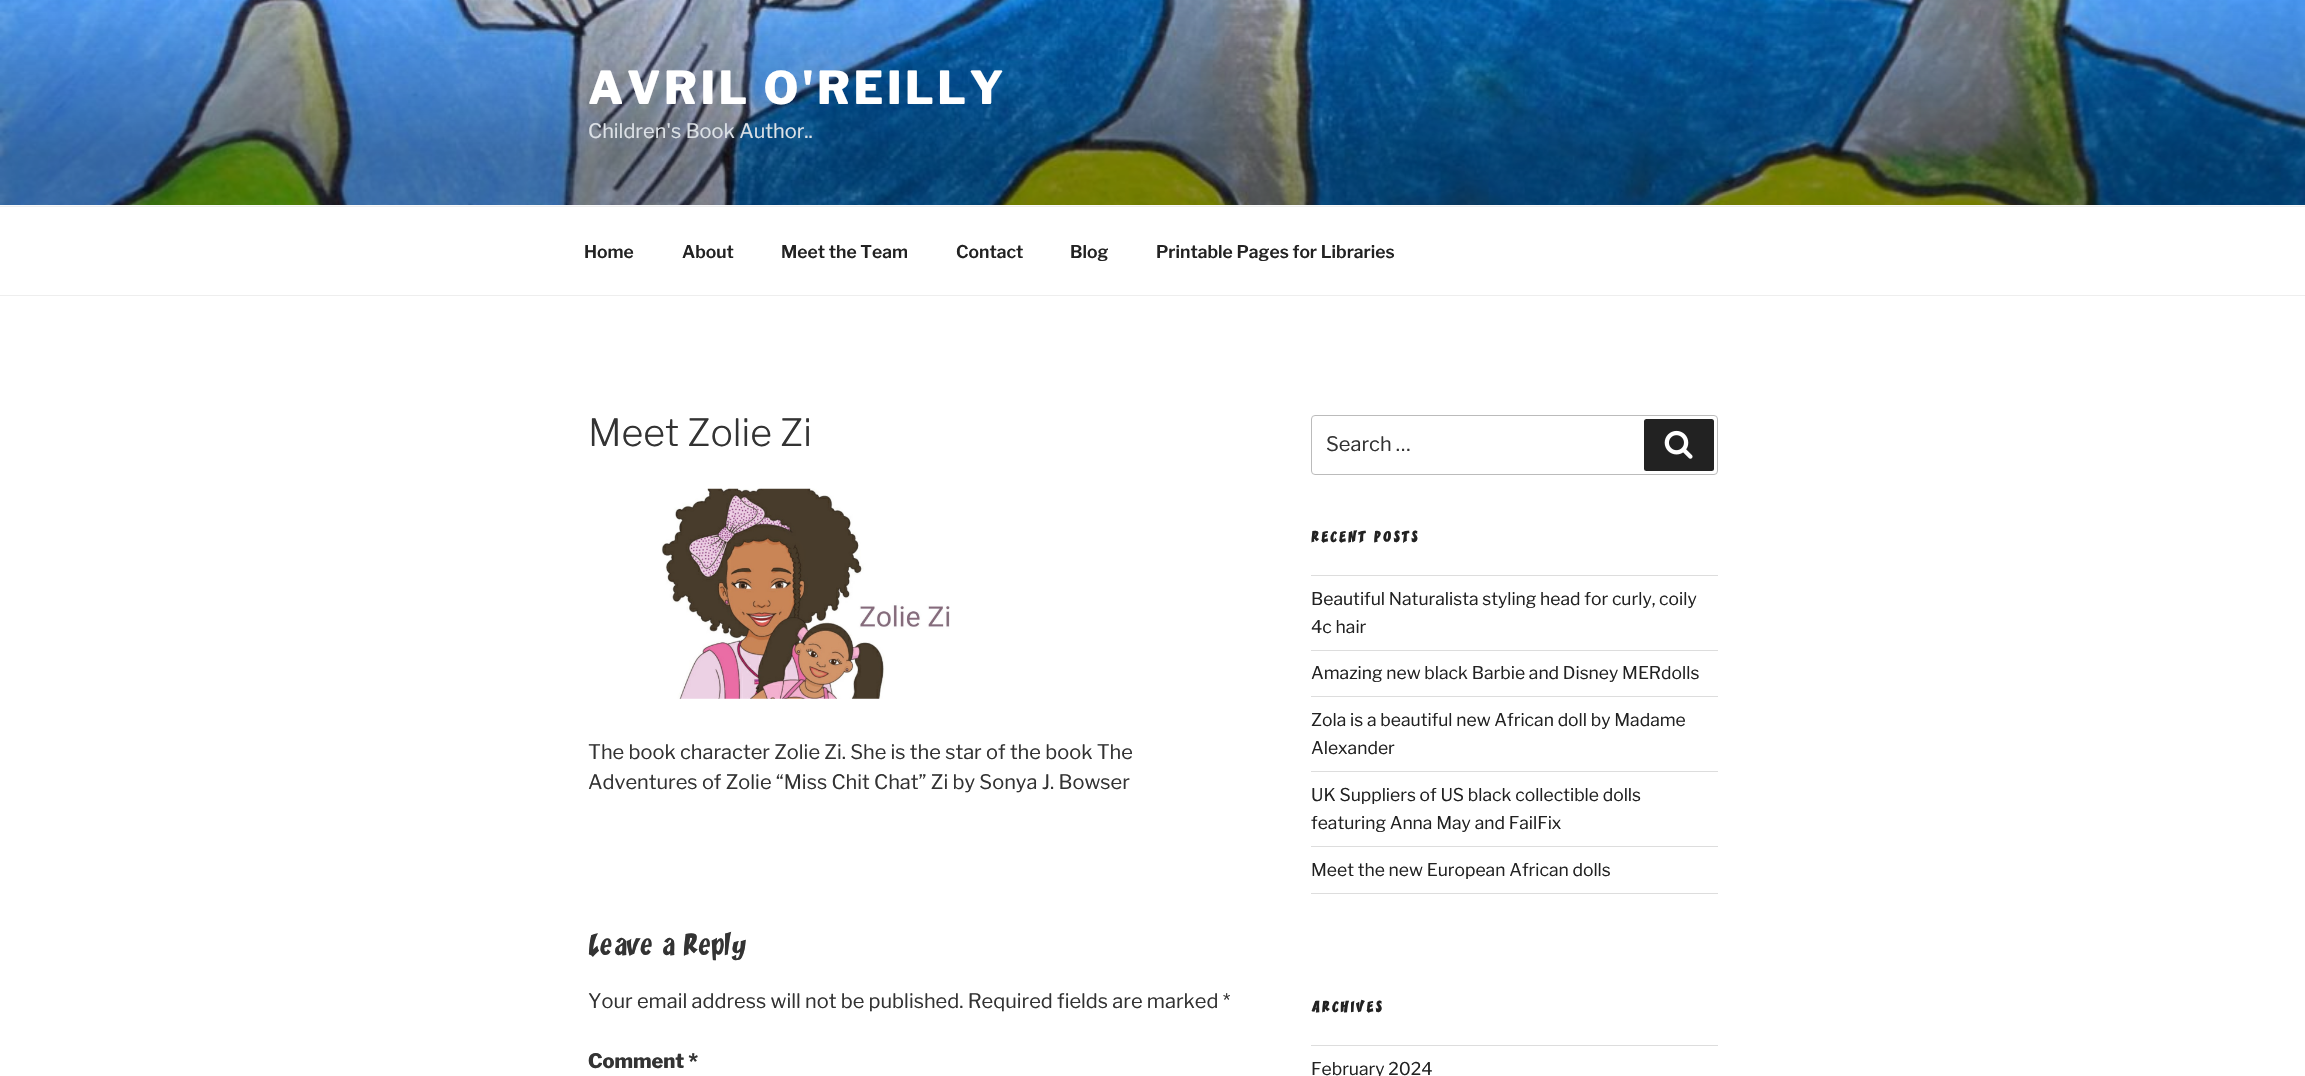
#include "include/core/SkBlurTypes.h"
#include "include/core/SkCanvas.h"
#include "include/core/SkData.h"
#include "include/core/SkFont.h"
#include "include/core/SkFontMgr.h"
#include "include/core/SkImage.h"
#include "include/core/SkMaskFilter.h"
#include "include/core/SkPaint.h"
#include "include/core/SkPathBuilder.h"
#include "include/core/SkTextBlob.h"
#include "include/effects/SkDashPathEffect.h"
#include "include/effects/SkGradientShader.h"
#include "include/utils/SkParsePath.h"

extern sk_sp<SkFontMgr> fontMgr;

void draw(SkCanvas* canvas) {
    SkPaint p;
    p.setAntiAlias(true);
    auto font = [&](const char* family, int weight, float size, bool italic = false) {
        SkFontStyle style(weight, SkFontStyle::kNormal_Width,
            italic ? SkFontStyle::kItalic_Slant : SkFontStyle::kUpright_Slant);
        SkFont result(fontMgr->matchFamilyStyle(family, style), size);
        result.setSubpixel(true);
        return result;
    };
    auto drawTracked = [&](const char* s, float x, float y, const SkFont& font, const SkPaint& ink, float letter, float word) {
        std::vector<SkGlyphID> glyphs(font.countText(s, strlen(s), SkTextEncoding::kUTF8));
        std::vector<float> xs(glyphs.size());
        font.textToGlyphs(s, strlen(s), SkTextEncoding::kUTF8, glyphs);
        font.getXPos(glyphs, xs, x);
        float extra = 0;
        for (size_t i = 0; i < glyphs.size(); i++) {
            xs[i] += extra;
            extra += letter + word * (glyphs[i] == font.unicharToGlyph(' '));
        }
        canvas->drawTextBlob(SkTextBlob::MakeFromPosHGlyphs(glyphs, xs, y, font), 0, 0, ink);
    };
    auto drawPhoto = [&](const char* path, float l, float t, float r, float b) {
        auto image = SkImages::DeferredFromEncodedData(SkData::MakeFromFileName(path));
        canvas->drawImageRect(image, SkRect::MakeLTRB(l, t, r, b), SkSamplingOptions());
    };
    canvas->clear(0xFFFFFFFF);
    p.setColor(0xFFFAFAFA);
    canvas->drawRect(SkRect::MakeLTRB(0, 205, 2305, 206), p);
    drawPhoto("media/1.png", 0, 0, 2305, 205);
    auto font1 = font("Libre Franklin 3", 100, 45);
    p.setColor(0xFFFFFFFF);
    drawTracked("AVRIL O'REILLY", 588, 104, font1, p, 3.6f, 0);
    auto font2 = font("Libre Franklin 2", 100, 20);
    p.setColor(0xFFDCE1E6);
    canvas->drawString("Children's Book Author..", 588, 138, font2, p);
    p.setColor(0xFFEEEEEE);
    canvas->drawRect(SkRect::MakeLTRB(0, 206, 2305, 207), p);
    canvas->drawRect(SkRect::MakeLTRB(0, 295, 2305, 296), p);
    auto font3 = font("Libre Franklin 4", 100, 17.5f);
    p.setColor(0xFF222222);
    {
        const struct { const char* s; float x, y; } items[] = {
            {"Home", 584, 258},
            {"About", 682, 258},
            {"Meet the Team", 781, 258},
            {"Contact", 956, 258},
            {"Blog", 1070, 258},
            {"Printable Pages for Libraries", 1156, 258},
        };
        for (auto [s, x, y] : items) {
            canvas->drawString(s, x, y, font3, p);
        }
    }
    auto font4 = font("Libre Franklin", 100, 37.5f);
    p.setColor(0xFF333333);
    canvas->drawString("Meet Zolie Zi", 588, 446, font4, p);
    drawPhoto("media/2.png", 661, 488, 950, 699);
    canvas->drawString("The book character Zolie Zi. She is the star of the book The", 588, 759, font2, p);
    canvas->drawString("Adventures of Zolie “Miss Chit Chat” Zi by Sonya J. Bowser", 588, 789, font2, p);
    auto font5 = font("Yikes", 400, 27.5f);
    canvas->drawString("Leave a Reply", 588, 955, font5, p);
    canvas->drawString("Your email address will not be published. Required fields are marked *", 588, 1008, font2, p);
    auto font6 = font("Libre Franklin 3", 100, 20);
    canvas->drawString("Comment *", 588, 1068, font6, p);
    p.setStyle(SkPaint::kStroke_Style);
    p.setStrokeWidth(1);
    p.setColor(0xFFBBBBBB);
    canvas->drawRoundRect(SkRect::MakeLTRB(1311.5f, 415.5f, 1717.5f, 474.5f), 3.5f, 3.5f, p);
    p.setStyle(SkPaint::kFill_Style);
    p.setColor(0xFF333333);
    canvas->drawString("Search …", 1326, 451, font2, p);
    p.setColor(0xFF222222);
    canvas->drawRoundRect(SkRect::MakeLTRB(1644, 419, 1714, 471), 2.5f, 2.5f, p);
    drawPhoto("media/3.png", 1664, 430, 1693, 459);
    auto font7 = font("Yikes", 700, 13.75f);
    drawTracked("RECENT POSTS", 1311, 542, font7, p, 2.5f, 0);
    p.setColor(0xFFDDDDDD);
    canvas->drawRect(SkRect::MakeLTRB(1311, 575, 1718, 576), p);
    canvas->drawRect(SkRect::MakeLTRB(1311, 650, 1718, 651), p);
    auto font8 = font("Libre Franklin 2", 100, 17.5f);
    p.setColor(0xFF222222);
    canvas->drawString("Beautiful Naturalista styling head for curly, coily", 1311, 605, font8, p);
    canvas->drawString("4c hair", 1311, 633, font8, p);
    p.setColor(0xFFDDDDDD);
    canvas->drawRect(SkRect::MakeLTRB(1311, 696, 1718, 697), p);
    p.setColor(0xFF222222);
    canvas->drawString("Amazing new black Barbie and Disney MERdolls", 1311, 679, font8, p);
    p.setColor(0xFFDDDDDD);
    canvas->drawRect(SkRect::MakeLTRB(1311, 771, 1718, 772), p);
    p.setColor(0xFF222222);
    canvas->drawString("Zola is a beautiful new African doll by Madame", 1311, 726, font8, p);
    canvas->drawString("Alexander", 1311, 754, font8, p);
    p.setColor(0xFFDDDDDD);
    canvas->drawRect(SkRect::MakeLTRB(1311, 846, 1718, 847), p);
    p.setColor(0xFF222222);
    canvas->drawString("UK Suppliers of US black collectible dolls", 1311, 801, font8, p);
    canvas->drawString("featuring Anna May and FailFix", 1311, 829, font8, p);
    p.setColor(0xFFDDDDDD);
    canvas->drawRect(SkRect::MakeLTRB(1311, 893, 1718, 894), p);
    p.setColor(0xFF222222);
    canvas->drawString("Meet the new European African dolls", 1311, 876, font8, p);
    drawTracked("ARCHIVES", 1311, 1012, font7, p, 2.5f, 0);
    p.setColor(0xFFDDDDDD);
    canvas->drawRect(SkRect::MakeLTRB(1311, 1045, 1718, 1046), p);
    p.setColor(0xFF222222);
    canvas->drawString("February 2024", 1311, 1075, font8, p);
}
